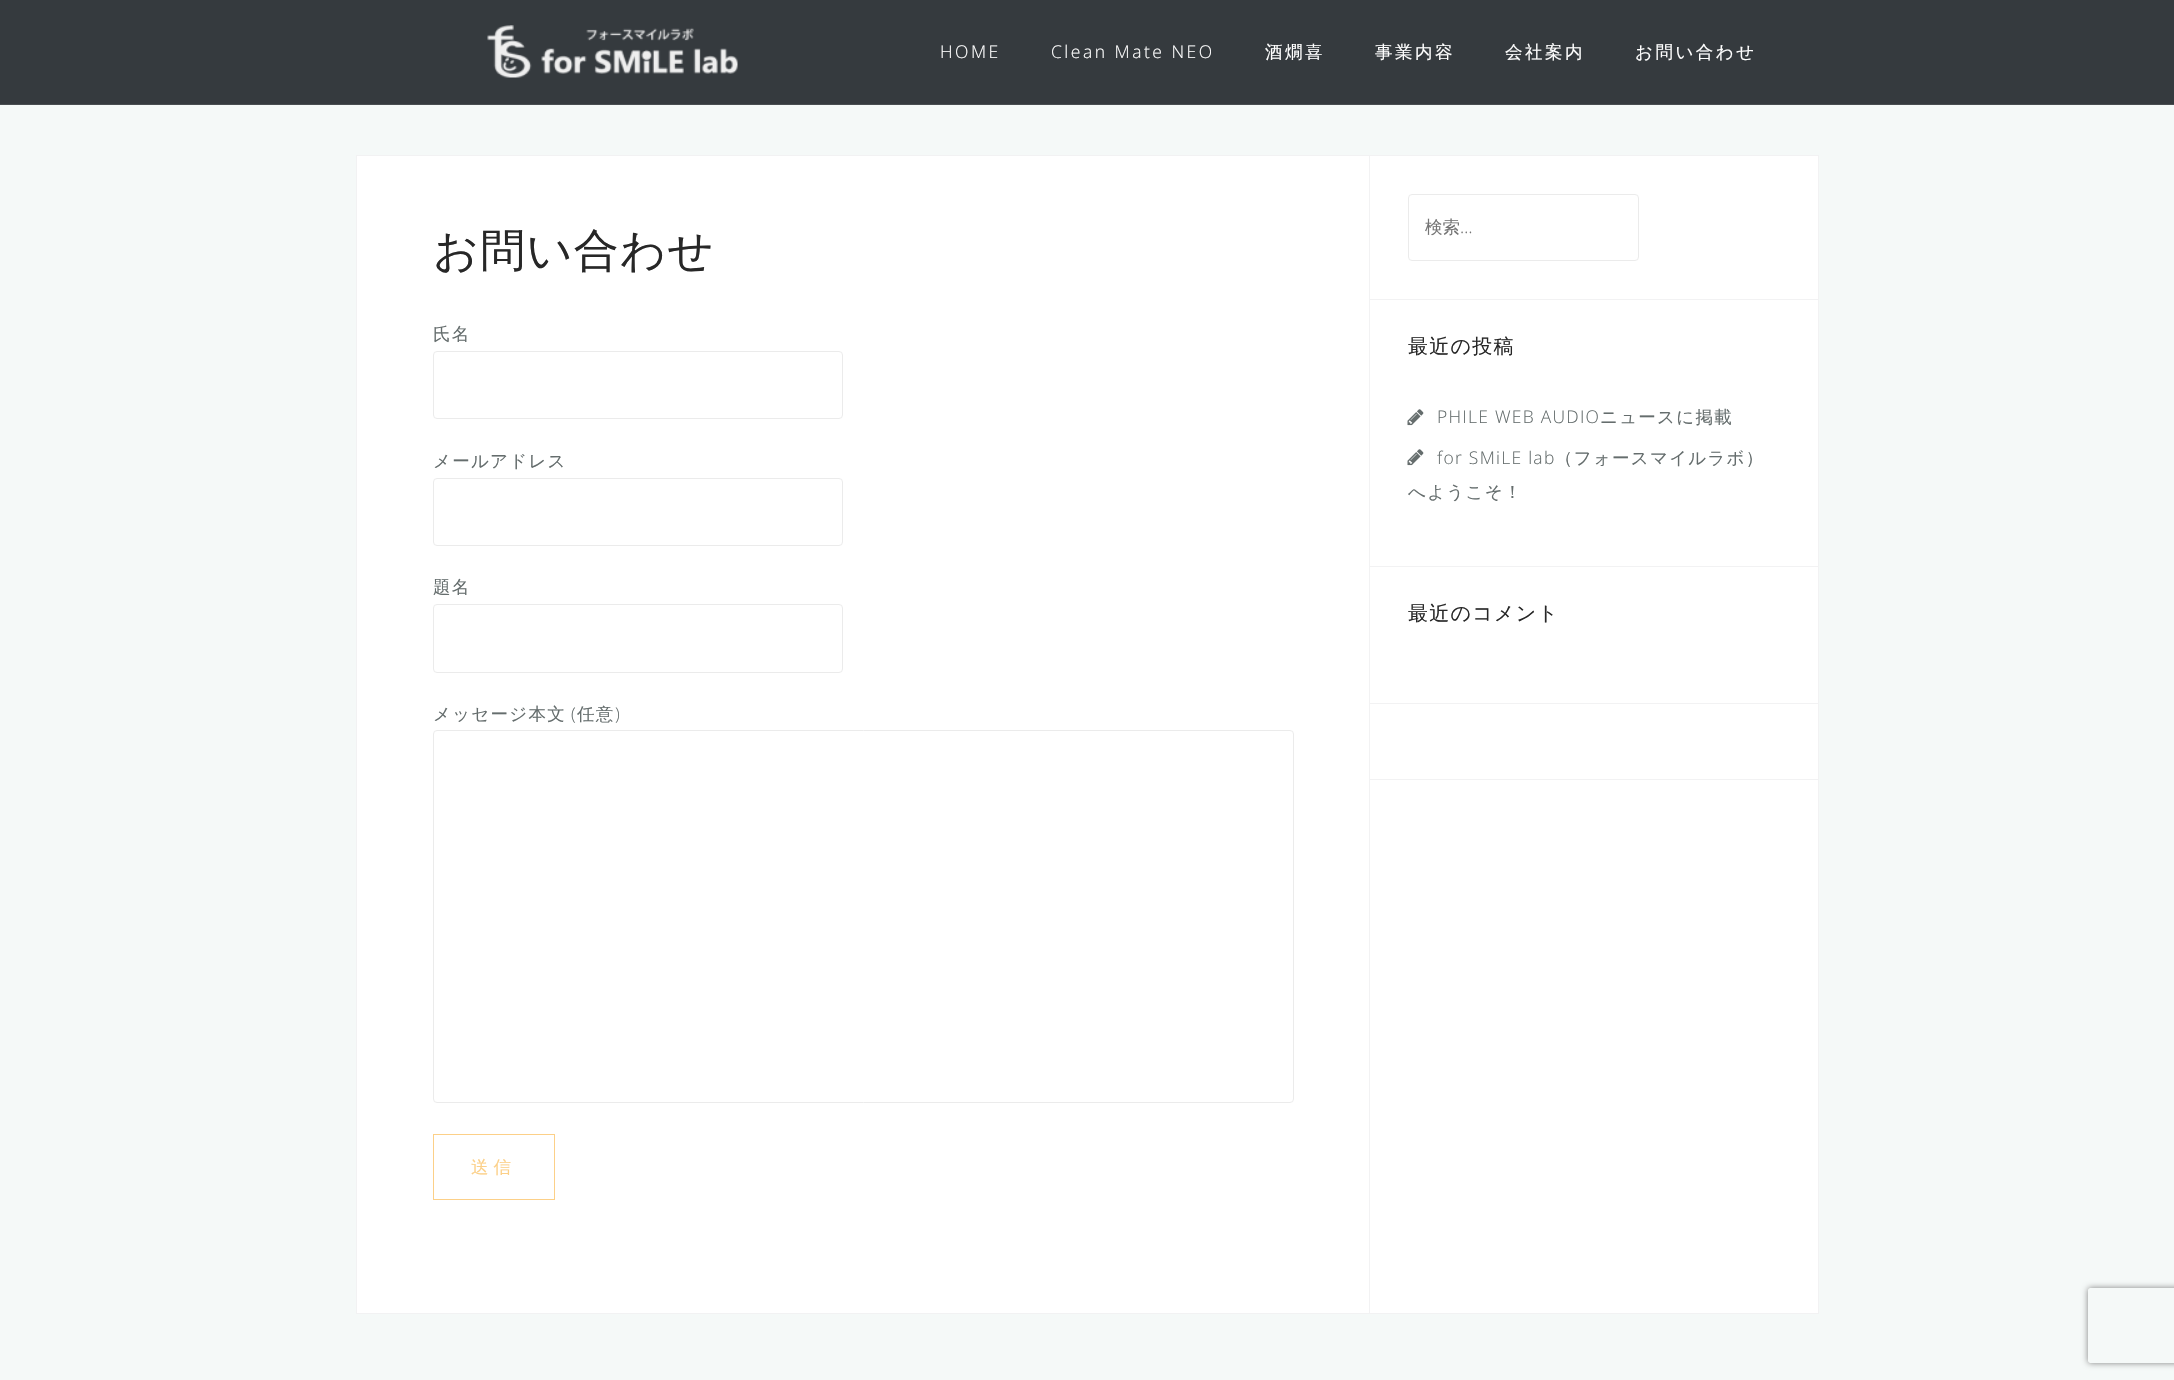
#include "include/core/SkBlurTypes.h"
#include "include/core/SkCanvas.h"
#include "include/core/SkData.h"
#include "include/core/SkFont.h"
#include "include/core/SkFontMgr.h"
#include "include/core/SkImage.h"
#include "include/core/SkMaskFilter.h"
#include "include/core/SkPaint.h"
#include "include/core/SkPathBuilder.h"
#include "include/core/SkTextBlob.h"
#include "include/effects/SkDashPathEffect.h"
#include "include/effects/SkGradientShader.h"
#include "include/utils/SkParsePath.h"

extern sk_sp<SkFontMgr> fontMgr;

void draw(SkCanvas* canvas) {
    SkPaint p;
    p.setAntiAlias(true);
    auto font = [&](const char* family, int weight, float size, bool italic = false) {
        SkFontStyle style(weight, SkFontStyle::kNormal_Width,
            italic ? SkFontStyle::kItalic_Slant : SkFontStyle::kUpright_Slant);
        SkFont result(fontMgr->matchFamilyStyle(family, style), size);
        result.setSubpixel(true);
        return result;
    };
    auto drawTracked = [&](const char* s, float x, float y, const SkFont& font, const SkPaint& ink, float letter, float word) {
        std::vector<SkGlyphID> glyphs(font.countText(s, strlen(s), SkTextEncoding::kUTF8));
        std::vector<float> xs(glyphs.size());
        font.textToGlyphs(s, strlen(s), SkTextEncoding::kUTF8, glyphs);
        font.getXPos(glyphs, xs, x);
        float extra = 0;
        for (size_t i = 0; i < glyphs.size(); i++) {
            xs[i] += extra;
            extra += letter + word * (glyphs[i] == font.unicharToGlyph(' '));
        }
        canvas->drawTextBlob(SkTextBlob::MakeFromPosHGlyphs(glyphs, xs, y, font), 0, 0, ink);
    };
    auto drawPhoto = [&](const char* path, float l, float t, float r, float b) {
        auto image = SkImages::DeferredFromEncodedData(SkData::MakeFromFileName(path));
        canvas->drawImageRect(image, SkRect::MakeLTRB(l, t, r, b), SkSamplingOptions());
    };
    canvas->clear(0xFFF5F9F8);
    p.setColor(0xFF353A3E);
    canvas->drawRect(SkRect::MakeLTRB(0, 0, 2174, 104), p);
    p.setColor(0xFF494E51);
    canvas->drawRect(SkRect::MakeLTRB(0, 104, 2174, 105), p);
    drawPhoto("media/1.png", 487, 25, 738, 78);
    auto font1 = font("Open Sans", 300, 17.5f);
    p.setColor(0xFFFFFFFF);
    drawTracked("HOME", 940, 58, font1, p, 2.5f, 0);
    drawTracked("Clean Mate NEO", 1051, 58, font1, p, 2.5f, 0);
    auto font2 = font("WenQuanYi Zen Hei", 500, 17.5f);
    {
        const struct { const char* s; float x, y; } items[] = {
            {"酒燗喜", 1265, 58},
            {"事業内容", 1375, 58},
            {"会社案内", 1505, 58},
            {"お問い合わせ", 1635, 58},
        };
        for (auto [s, x, y] : items) {
            drawTracked(s, x, y, font2, p, 2.5f, 0);
        }
    }
    {
        const struct { float l, t, r, b; SkColor color; } items[] = {
            {1370, 780, 1818, 1313, 0xFFFFFFFF},
            {1818, 780, 1819, 1314, 0xFFF2F2F3},
            {1370, 1313, 1819, 1314, 0xFFF2F2F3},
        };
        for (auto [l, t, r, b, color] : items) {
            p.setColor(color);
            canvas->drawRect(SkRect::MakeLTRB(l, t, r, b), p);
        }
    }
    p.setColor(0xFFFFFFFF);
    canvas->drawRect(SkRect::MakeLTRB(356.5f, 155.5f, 1369.5f, 1313.5f), p);
    p.setStyle(SkPaint::kStroke_Style);
    p.setStrokeWidth(1);
    p.setColor(0xFFF2F2F3);
    canvas->drawRect(SkRect::MakeLTRB(356.5f, 155.5f, 1369.5f, 1313.5f), p);
    auto font3 = font("WenQuanYi Zen Hei", 500, 45);
    p.setStyle(SkPaint::kFill_Style);
    p.setColor(0xFF272727);
    drawTracked("お問い合わせ", 433, 266, font3, p, 1.25f, 0);
    p.setColor(0xFF656D6D);
    drawTracked("氏名", 433, 340, font2, p, 1.25f, 0);
    p.setStyle(SkPaint::kStroke_Style);
    p.setColor(0xFFEBEBEB);
    canvas->drawRoundRect(SkRect::MakeLTRB(433.5f, 351.5f, 842.5f, 418.5f), 3.5f, 3.5f, p);
    p.setStyle(SkPaint::kFill_Style);
    p.setColor(0xFF656D6D);
    drawTracked("メールアドレス", 433, 467, font2, p, 1.25f, 0);
    p.setStyle(SkPaint::kStroke_Style);
    p.setColor(0xFFEBEBEB);
    canvas->drawRoundRect(SkRect::MakeLTRB(433.5f, 478.5f, 842.5f, 545.5f), 3.5f, 3.5f, p);
    p.setStyle(SkPaint::kFill_Style);
    p.setColor(0xFF656D6D);
    drawTracked("題名", 433, 593, font2, p, 1.25f, 0);
    p.setStyle(SkPaint::kStroke_Style);
    p.setColor(0xFFEBEBEB);
    canvas->drawRoundRect(SkRect::MakeLTRB(433.5f, 604.5f, 842.5f, 672.5f), 3.5f, 3.5f, p);
    p.setStyle(SkPaint::kFill_Style);
    p.setColor(0xFF656D6D);
    drawTracked("メッセージ本文", 433, 720, font2, p, 1.25f, 0);
    drawTracked("(", 571, 720, font1, p, 1.25f, 0);
    drawTracked("任意", 577, 720, font2, p, 1.25f, 0);
    drawTracked(")", 615, 720, font1, p, 1.25f, 0);
    p.setStyle(SkPaint::kStroke_Style);
    p.setColor(0xFFEBEBEB);
    canvas->drawRoundRect(SkRect::MakeLTRB(433.5f, 730.5f, 1293.5f, 1102.5f), 3.5f, 3.5f, p);
    p.setColor(0xFFFCD088);
    canvas->drawRect(SkRect::MakeLTRB(433.5f, 1134.5f, 554.5f, 1199.5f), p);
    p.setStyle(SkPaint::kFill_Style);
    drawTracked("送信", 471, 1173, font2, p, 5, 0);
    p.setColor(0xFFFFFFFF);
    canvas->drawRect(SkRect::MakeLTRB(1369.5f, 155.5f, 1818.5f, 299.5f), p);
    p.setStyle(SkPaint::kStroke_Style);
    p.setColor(0xFFF2F2F3);
    canvas->drawRect(SkRect::MakeLTRB(1369.5f, 155.5f, 1818.5f, 299.5f), p);
    p.setColor(0xFFEBEBEB);
    canvas->drawRoundRect(SkRect::MakeLTRB(1408.5f, 194.5f, 1638.5f, 260.5f), 3.5f, 3.5f, p);
    p.setStyle(SkPaint::kFill_Style);
    p.setColor(0xFF757575);
    canvas->drawString("検索", 1425, 233, font2, p);
    canvas->drawString("…", 1460, 233, font1, p);
    p.setColor(0xFFFFFFFF);
    canvas->drawRect(SkRect::MakeLTRB(1370, 300, 1818, 566), p);
    p.setStyle(SkPaint::kStroke_Style);
    p.setColor(0xFFF2F2F3);
    canvas->drawRect(SkRect::MakeLTRB(1369.5f, 299.5f, 1818.5f, 567.5f), p);
    auto font4 = font("WenQuanYi Zen Hei", 500, 20);
    p.setStyle(SkPaint::kFill_Style);
    p.setColor(0xFF272727);
    drawTracked("最近の投稿", 1408, 353, font4, p, 1.25f, 0);
    drawPhoto("media/2.png", 1407, 409, 1424, 426);
    p.setColor(0xFF656D6D);
    drawTracked("PHILE WEB AUDIO", 1437, 423, font1, p, 1.25f, 0);
    drawTracked("ニュースに掲載", 1600, 423, font2, p, 1.25f, 0);
    drawPhoto("media/2.png", 1407, 449, 1424, 466);
    drawTracked("for SMiLE lab", 1437, 464, font1, p, 1.25f, 0);
    drawTracked("（フォースマイルラボ）", 1555, 464, font2, p, 1.25f, 0);
    drawTracked("へようこそ！", 1408, 498, font2, p, 1.25f, 0);
    p.setColor(0xFFFFFFFF);
    canvas->drawRect(SkRect::MakeLTRB(1369.5f, 566.5f, 1818.5f, 703.5f), p);
    p.setStyle(SkPaint::kStroke_Style);
    p.setColor(0xFFF2F2F3);
    canvas->drawRect(SkRect::MakeLTRB(1369.5f, 566.5f, 1818.5f, 703.5f), p);
    p.setStyle(SkPaint::kFill_Style);
    p.setColor(0xFF272727);
    drawTracked("最近のコメント", 1408, 620, font4, p, 1.25f, 0);
    p.setColor(0xFFFFFFFF);
    canvas->drawRect(SkRect::MakeLTRB(1369.5f, 703.5f, 1818.5f, 779.5f), p);
    p.setStyle(SkPaint::kStroke_Style);
    p.setColor(0xFFF2F2F3);
    canvas->drawRect(SkRect::MakeLTRB(1369.5f, 703.5f, 1818.5f, 779.5f), p);
    canvas->save();
    canvas->clipPath(SkPathBuilder(SkPathFillType::kEvenOdd).moveTo(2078, 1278).lineTo(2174, 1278).lineTo(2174, 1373).lineTo(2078, 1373).close().moveTo(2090.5f, 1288).lineTo(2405.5f, 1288).cubicTo(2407, 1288, 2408, 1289, 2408, 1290.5f).lineTo(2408, 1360.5f).cubicTo(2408, 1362, 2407, 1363, 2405.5f, 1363).lineTo(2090.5f, 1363).cubicTo(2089, 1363, 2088, 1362, 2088, 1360.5f).lineTo(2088, 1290.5f).cubicTo(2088, 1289, 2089, 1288, 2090.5f, 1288).close().detach(), true);
    p.setStyle(SkPaint::kFill_Style);
    p.setColor(0xFF808080);
    p.setMaskFilter(SkMaskFilter::MakeBlur(kNormal_SkBlurStyle, 3));
    canvas->drawRoundRect(SkRect::MakeLTRB(2088, 1288, 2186, 1363), 2.5f, 2.5f, p);
    p.setMaskFilter(nullptr);
    canvas->restore();
}
